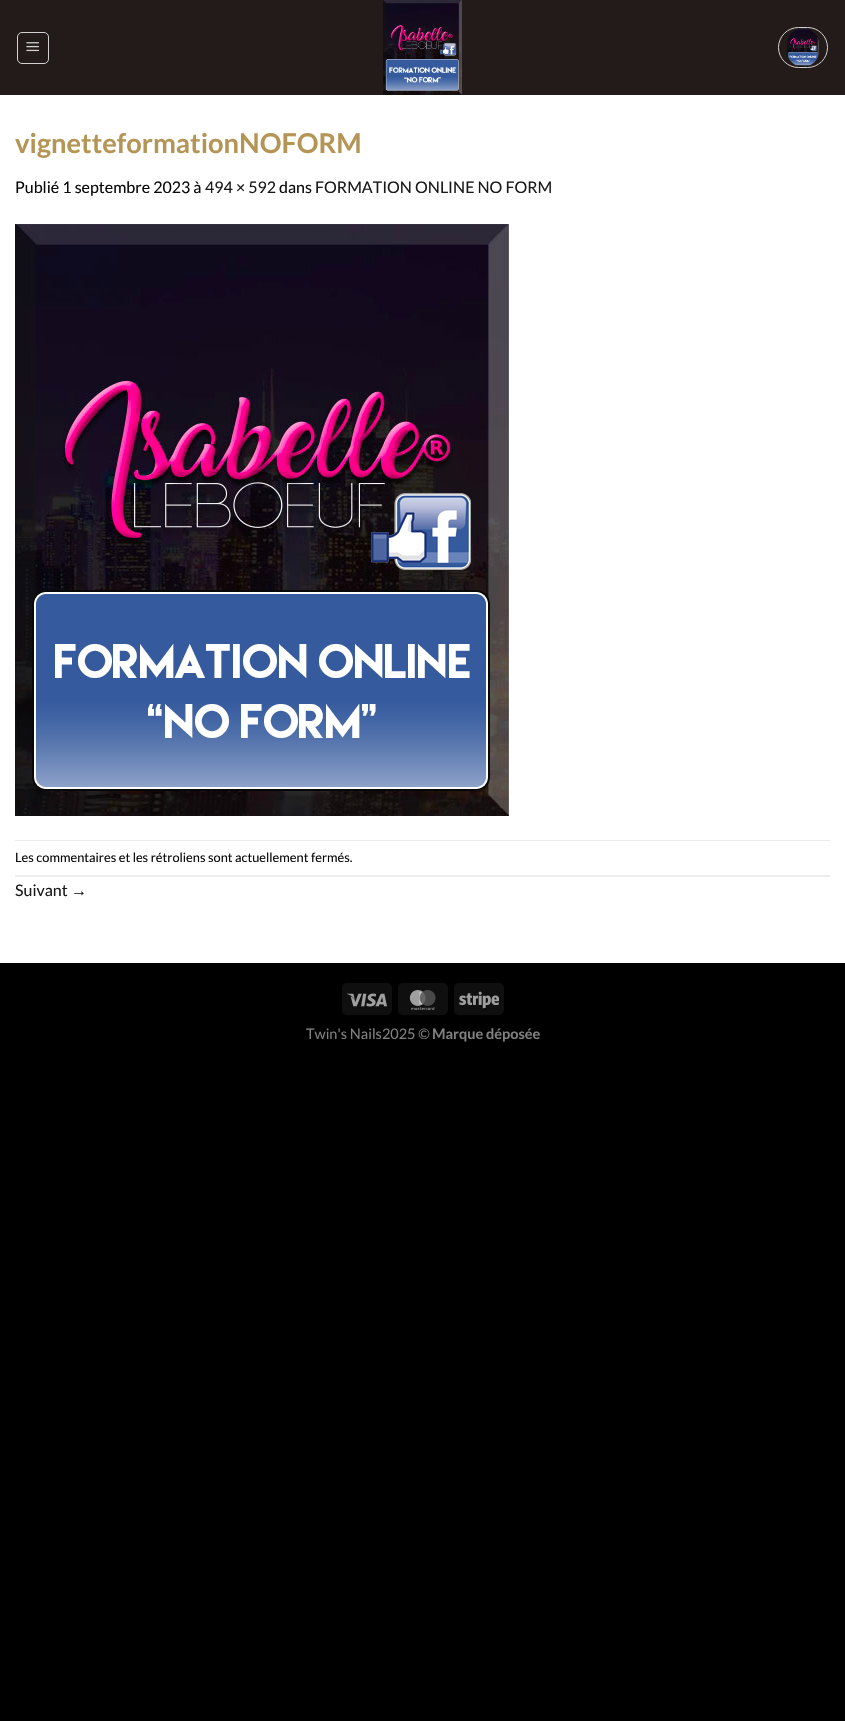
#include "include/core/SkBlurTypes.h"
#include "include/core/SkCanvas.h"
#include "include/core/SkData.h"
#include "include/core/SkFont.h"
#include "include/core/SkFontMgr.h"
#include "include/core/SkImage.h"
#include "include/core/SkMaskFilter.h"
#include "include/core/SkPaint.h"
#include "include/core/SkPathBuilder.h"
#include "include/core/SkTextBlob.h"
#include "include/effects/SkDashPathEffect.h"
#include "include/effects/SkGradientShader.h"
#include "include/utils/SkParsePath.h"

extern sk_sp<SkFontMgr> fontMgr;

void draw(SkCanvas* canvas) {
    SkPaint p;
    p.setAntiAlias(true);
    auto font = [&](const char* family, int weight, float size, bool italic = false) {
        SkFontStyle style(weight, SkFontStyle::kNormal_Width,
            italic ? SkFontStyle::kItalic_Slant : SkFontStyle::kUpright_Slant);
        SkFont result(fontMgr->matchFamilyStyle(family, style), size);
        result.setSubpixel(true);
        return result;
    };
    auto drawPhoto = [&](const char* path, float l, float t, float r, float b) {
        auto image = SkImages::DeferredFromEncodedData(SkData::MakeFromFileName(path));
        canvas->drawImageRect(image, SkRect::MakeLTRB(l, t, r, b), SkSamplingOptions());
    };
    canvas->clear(0xFF000000);
    p.setColor(0xFFFFFFFF);
    canvas->drawRect(SkRect::MakeLTRB(0, 95, 845, 963), p);
    p.setColor(0xFF231A1A);
    canvas->drawRect(SkRect::MakeLTRB(0, 0, 845, 95), p);
    p.setStyle(SkPaint::kStroke_Style);
    p.setStrokeWidth(1);
    p.setColor(0xFFD3D1D1);
    canvas->drawRoundRect(SkRect::MakeLTRB(17.5f, 32.5f, 48.5f, 63.5f), 4.5f, 4.5f, p);
    drawPhoto("media/1.png", 26, 42, 39, 52);
    drawPhoto("media/2.png", 383, 0, 462, 95);
    canvas->drawRoundRect(SkRect::MakeLTRB(778.5f, 27.5f, 827.5f, 67.5f), 20, 20, p);
    drawPhoto("media/3.png", 787, 28, 819, 67);
    auto font1 = font("Lato", 700, 27.25f);
    p.setStyle(SkPaint::kFill_Style);
    p.setColor(0xFFB59555);
    canvas->drawString("vignetteformationNOFORM", 15, 153, font1, p);
    auto font2 = font("Lato", 400, 16);
    p.setColor(0xFF0A0A0A);
    canvas->drawString("Publié 1 septembre 2023 à", 15, 193, font2, p);
    p.setColor(0xFF191919);
    canvas->drawString("494 × 592", 205, 193, font2, p);
    p.setColor(0xFF0A0A0A);
    canvas->drawString("dans", 279, 193, font2, p);
    p.setColor(0xFF191919);
    canvas->drawString("FORMATION ONLINE NO FORM", 315, 193, font2, p);
    drawPhoto("media/4.png", 15, 224, 509, 816);
    p.setColor(0xFFECECEC);
    canvas->drawRect(SkRect::MakeLTRB(15, 840, 830, 841), p);
    canvas->drawRect(SkRect::MakeLTRB(15, 875, 830, 877), p);
    auto font3 = font("Lato", 400, 12.8f);
    p.setColor(0xFF0A0A0A);
    canvas->drawString("Les commentaires et les rétroliens sont actuellement fermés.", 15, 862, font3, p);
    p.setColor(0xFF191919);
    canvas->drawString("Suivant", 15, 896, font2, p);
    auto font4 = font("Liberation Sans", 400, 16);
    canvas->drawString("→", 71, 896, font4, p);
    p.setColor(0xFF0F0F0F);
    canvas->drawRoundRect(SkRect::MakeLTRB(342, 983, 392, 1015), 5, 5, p);
    drawPhoto("media/5.png", 347, 993, 387, 1007);
    canvas->drawRoundRect(SkRect::MakeLTRB(398, 983, 448, 1015), 5, 5, p);
    drawPhoto("media/6.png", 409, 990, 436, 1010);
    canvas->drawRoundRect(SkRect::MakeLTRB(454, 983, 504, 1015), 5, 5, p);
    drawPhoto("media/7.png", 459, 991, 499, 1009);
    auto font5 = font("Lato", 400, 14.5f);
    p.setColor(0xFF808080);
    canvas->drawString("Twin's Nails2025 ©", 306, 1039, font5, p);
    auto font6 = font("Lato", 700, 14.5f);
    canvas->drawString("Marque déposée", 432, 1039, font6, p);
}
